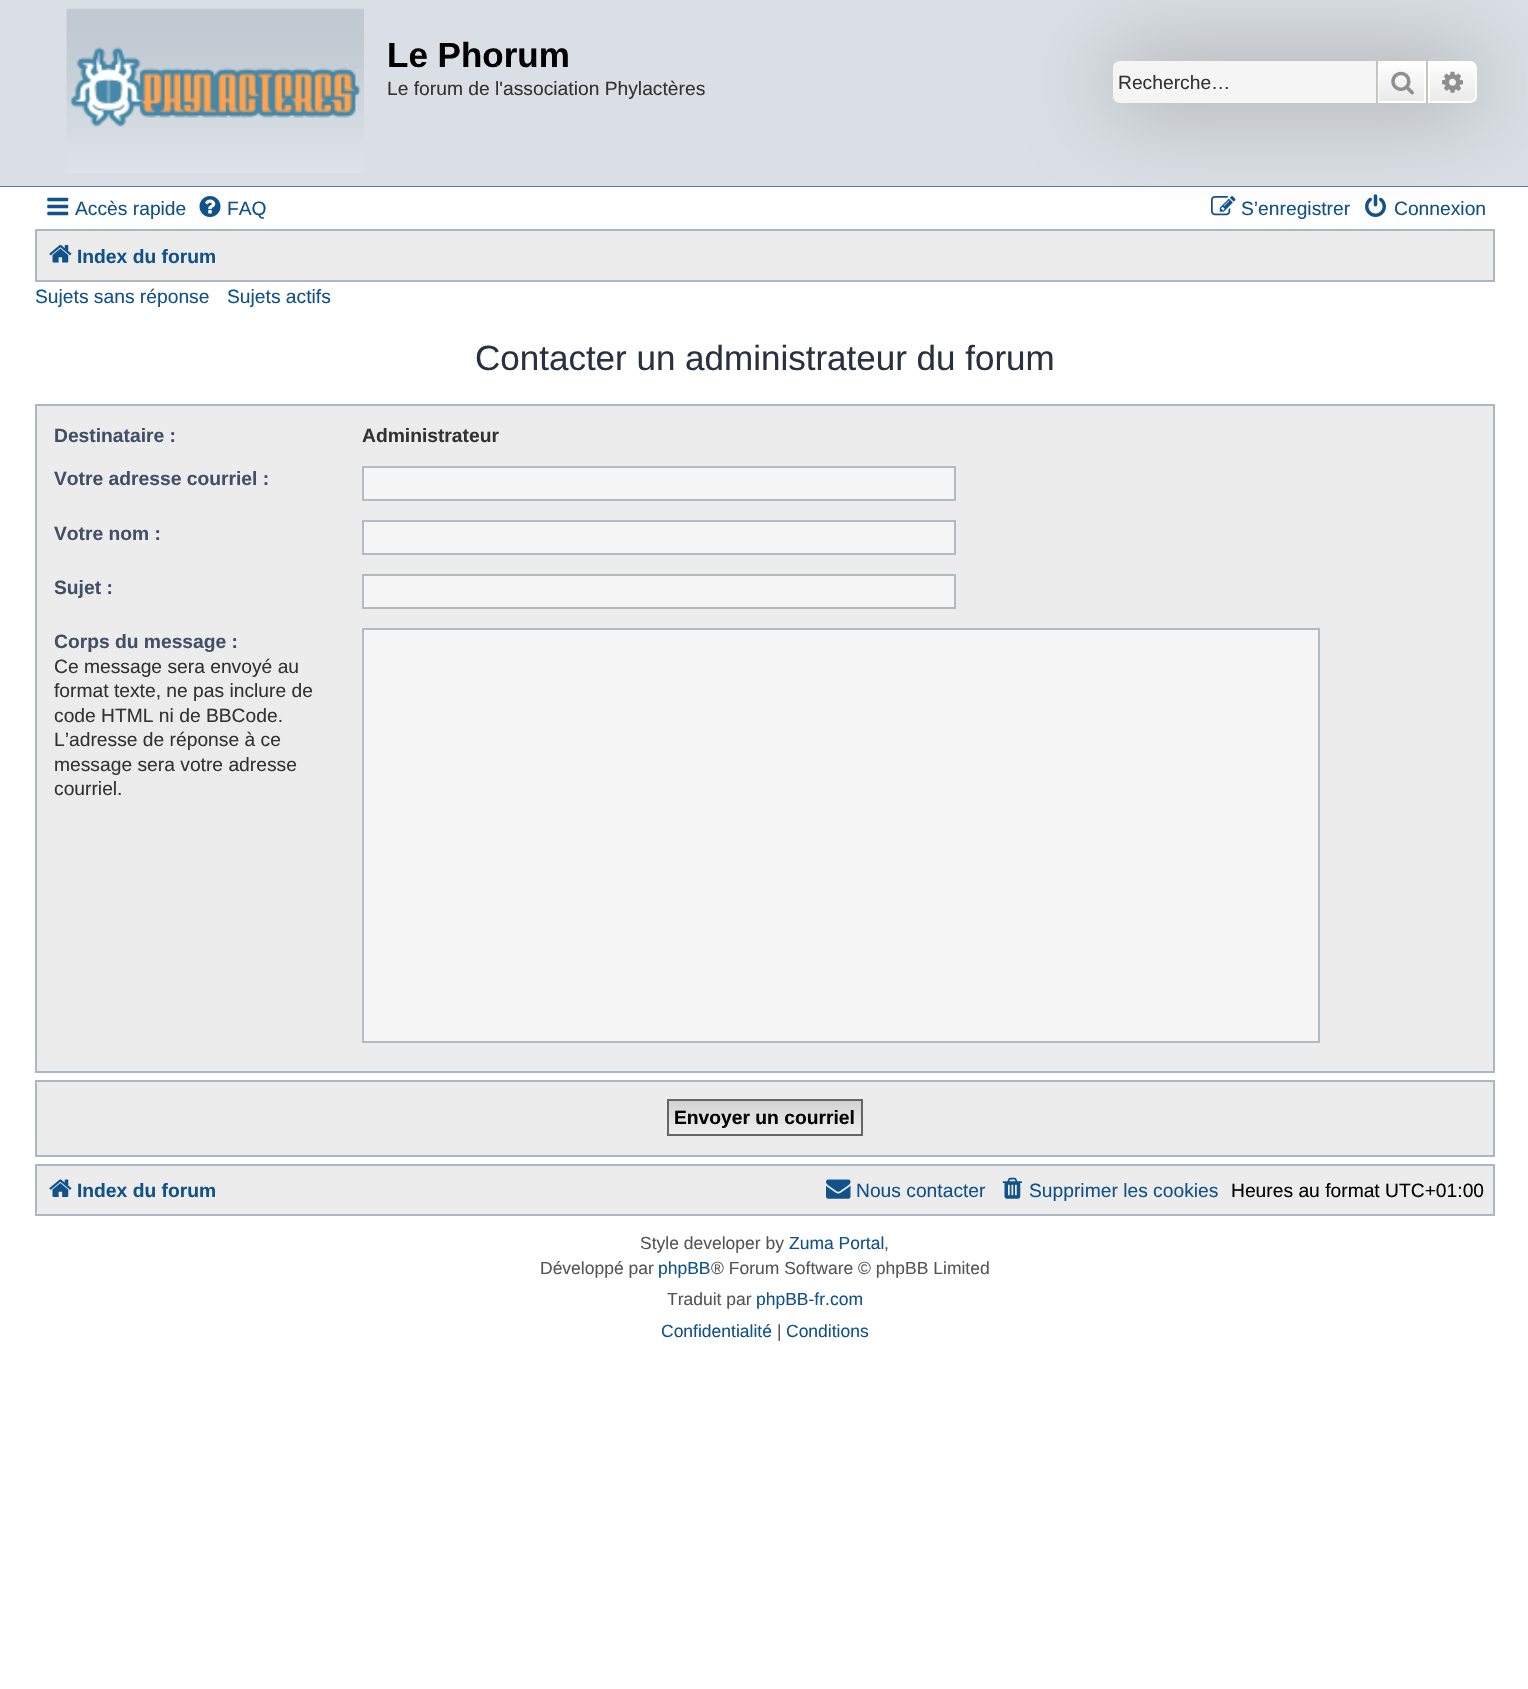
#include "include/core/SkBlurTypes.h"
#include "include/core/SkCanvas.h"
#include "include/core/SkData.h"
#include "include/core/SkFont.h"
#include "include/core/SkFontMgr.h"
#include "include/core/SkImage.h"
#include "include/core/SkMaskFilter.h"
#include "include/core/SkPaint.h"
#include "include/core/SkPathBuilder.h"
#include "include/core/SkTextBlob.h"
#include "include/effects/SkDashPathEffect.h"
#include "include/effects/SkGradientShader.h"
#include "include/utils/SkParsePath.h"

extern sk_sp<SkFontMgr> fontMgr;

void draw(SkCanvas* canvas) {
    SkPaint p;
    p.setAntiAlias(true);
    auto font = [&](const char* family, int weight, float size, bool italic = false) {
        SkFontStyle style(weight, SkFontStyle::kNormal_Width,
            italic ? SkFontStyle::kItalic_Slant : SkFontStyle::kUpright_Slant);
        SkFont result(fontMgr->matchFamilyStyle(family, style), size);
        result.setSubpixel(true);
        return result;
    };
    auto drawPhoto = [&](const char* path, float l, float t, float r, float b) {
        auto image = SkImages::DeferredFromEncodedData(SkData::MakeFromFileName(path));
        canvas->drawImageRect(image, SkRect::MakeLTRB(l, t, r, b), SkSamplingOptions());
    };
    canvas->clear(0xFFFFFFFF);
    p.setColor(0xFFD9DFE4);
    canvas->drawRect(SkRect::MakeLTRB(0, 0, 1528, 186), p);
    p.setColor(0xFF4787A7);
    canvas->drawRect(SkRect::MakeLTRB(0, 186, 1528, 187), p);
    drawPhoto("media/1.png", 66, 8, 364, 173);
    auto font1 = font("Liberation Sans", 700, 35);
    p.setColor(0xFF000000);
    canvas->drawString("Le Phorum", 387, 67, font1, p);
    auto font2 = font("Liberation Sans", 400, 19.25f);
    p.setColor(0xFF333333);
    canvas->drawString("Le forum de l'association Phylactères", 387, 95, font2, p);
    p.setColor(0xFFECECEC);
    canvas->drawRect(SkRect::MakeLTRB(36, 230, 1494, 281), p);
    p.setStyle(SkPaint::kStroke_Style);
    p.setStrokeWidth(2);
    p.setColor(0xFFA9B8C2);
    canvas->drawRect(SkRect::MakeLTRB(36, 230, 1494, 281), p);
    p.setStyle(SkPaint::kFill_Style);
    p.setColor(0xFF999999);
    p.setMaskFilter(SkMaskFilter::MakeBlur(kNormal_SkBlurStyle, 44));
    canvas->drawRoundRect(SkRect::MakeLTRB(1113, 61, 1477, 103), 7, 7, p);
    p.setMaskFilter(nullptr);
    p.setColor(0xFFF5F5F5);
    canvas->drawPath(SkPathBuilder().moveTo(1120, 61).lineTo(1376, 61).lineTo(1376, 103).lineTo(1120, 103).cubicTo(1116, 103, 1113, 100, 1113, 96).lineTo(1113, 68).cubicTo(1113, 64, 1116, 61, 1120, 61).close().detach(), p);
    p.setColor(0xFF333333);
    canvas->drawString("Recherche…", 1118, 89, font2, p);
    {
        const SkColor colors[] = {0xFFFFFFFF, 0xFFE9E9E9};
        const float stops[] = {0, 1};
        const SkPoint ends[] = {{1402, 61}, {1402, 103}};
        p.setShader(SkGradientShader::MakeLinear(ends, colors, stops, 2, SkTileMode::kClamp));
        p.setAlpha(255);
    }
    canvas->drawRect(SkRect::MakeLTRB(1379, 63, 1424, 101), p);
    p.setStyle(SkPaint::kStroke_Style);
    p.setShader(nullptr);
    p.setColor(0xFFFFFFFF);
    canvas->drawRect(SkRect::MakeLTRB(1378, 62, 1425, 102), p);
    p.setStyle(SkPaint::kFill_Style);
    p.setColor(0xFFC7C3BF);
    canvas->drawRect(SkRect::MakeLTRB(1426, 61, 1428, 103), p);
    canvas->drawRect(SkRect::MakeLTRB(1376, 61, 1378, 103), p);
    drawPhoto("media/2.png", 1391, 71, 1414, 95);
    {
        const SkColor colors[] = {0xFFFFFFFF, 0xFFE9E9E9};
        const float stops[] = {0, 1};
        const SkPoint ends[] = {{1453, 61}, {1453, 103}};
        p.setShader(SkGradientShader::MakeLinear(ends, colors, stops, 2, SkTileMode::kClamp));
        p.setAlpha(255);
    }
    canvas->drawPath(SkPathBuilder().moveTo(1429, 62).lineTo(1470, 62).cubicTo(1473.5f, 62, 1476, 64.5f, 1476, 68).lineTo(1476, 96).cubicTo(1476, 99.5f, 1473.5f, 102, 1470, 102).lineTo(1429, 102).close().detach(), p);
    p.setStyle(SkPaint::kStroke_Style);
    p.setShader(nullptr);
    p.setColor(0xFFFFFFFF);
    canvas->drawPath(SkPathBuilder().moveTo(1429, 62).lineTo(1470, 62).cubicTo(1473.5f, 62, 1476, 64.5f, 1476, 68).lineTo(1476, 96).cubicTo(1476, 99.5f, 1473.5f, 102, 1470, 102).lineTo(1429, 102).close().detach(), p);
    drawPhoto("media/3.png", 1442, 71, 1463, 93);
    drawPhoto("media/4.png", 47, 197, 69, 216);
    p.setStyle(SkPaint::kFill_Style);
    p.setColor(0xFF105289);
    canvas->drawString("Accès rapide", 75, 215, font2, p);
    drawPhoto("media/5.png", 199, 196, 221, 217);
    canvas->drawString("FAQ", 227, 215, font2, p);
    drawPhoto("media/6.png", 1211, 196, 1236, 216);
    canvas->drawString("S’enregistrer", 1241, 215, font2, p);
    drawPhoto("media/7.png", 1365, 194, 1386, 217);
    canvas->drawString("Connexion", 1394, 215, font2, p);
    drawPhoto("media/8.png", 49, 245, 72, 263);
    auto font3 = font("Liberation Sans", 700, 19.25f);
    canvas->drawString("Index du forum", 77, 263, font3, p);
    canvas->drawString("Sujets sans réponse", 35, 303, font2, p);
    canvas->drawString("Sujets actifs", 227, 303, font2, p);
    auto font4 = font("Liberation Sans", 400, 35);
    p.setColor(0xFF28313F);
    canvas->drawString("Contacter un administrateur du forum", 475, 370, font4, p);
    p.setColor(0xFFECECEC);
    canvas->drawRect(SkRect::MakeLTRB(36, 405, 1494, 1072), p);
    p.setStyle(SkPaint::kStroke_Style);
    p.setColor(0xFFA9B8C2);
    canvas->drawRect(SkRect::MakeLTRB(36, 405, 1494, 1072), p);
    p.setStyle(SkPaint::kFill_Style);
    p.setColor(0xFF425067);
    canvas->drawString("Destinataire :", 54, 442, font3, p);
    p.setColor(0xFF333333);
    canvas->drawString("Administrateur", 362, 442, font3, p);
    p.setColor(0xFF425067);
    canvas->drawString("Votre adresse courriel :", 54, 485, font3, p);
    p.setColor(0xFFF5F5F5);
    canvas->drawRect(SkRect::MakeLTRB(363, 467, 955, 500), p);
    p.setStyle(SkPaint::kStroke_Style);
    p.setColor(0xFFB4BAC0);
    canvas->drawRect(SkRect::MakeLTRB(363, 467, 955, 500), p);
    p.setStyle(SkPaint::kFill_Style);
    p.setColor(0xFF425067);
    canvas->drawString("Votre nom :", 54, 540, font3, p);
    p.setColor(0xFFF5F5F5);
    canvas->drawRect(SkRect::MakeLTRB(363, 521, 955, 554), p);
    p.setStyle(SkPaint::kStroke_Style);
    p.setColor(0xFFB4BAC0);
    canvas->drawRect(SkRect::MakeLTRB(363, 521, 955, 554), p);
    p.setStyle(SkPaint::kFill_Style);
    p.setColor(0xFF425067);
    canvas->drawString("Sujet :", 54, 594, font3, p);
    p.setColor(0xFFF5F5F5);
    canvas->drawRect(SkRect::MakeLTRB(363, 575, 955, 608), p);
    p.setStyle(SkPaint::kStroke_Style);
    p.setColor(0xFFB4BAC0);
    canvas->drawRect(SkRect::MakeLTRB(363, 575, 955, 608), p);
    p.setStyle(SkPaint::kFill_Style);
    p.setColor(0xFF425067);
    canvas->drawString("Corps du message :", 54, 648, font3, p);
    p.setColor(0xFF333333);
    {
        const struct { const char* s; float x, y; } items[] = {
            {"Ce message sera envoyé au", 54, 673},
            {"format texte, ne pas inclure de", 54, 697},
            {"code HTML ni de BBCode.", 54, 722},
            {"L’adresse de réponse à ce", 54, 746},
            {"message sera votre adresse", 54, 771},
            {"courriel.", 54, 795},
        };
        for (auto [s, x, y] : items) {
            canvas->drawString(s, x, y, font2, p);
        }
    }
    p.setColor(0xFFF5F5F5);
    canvas->drawRect(SkRect::MakeLTRB(363, 629, 1319, 1042), p);
    p.setStyle(SkPaint::kStroke_Style);
    p.setColor(0xFFB4BAC0);
    canvas->drawRect(SkRect::MakeLTRB(363, 629, 1319, 1042), p);
    p.setStyle(SkPaint::kFill_Style);
    p.setColor(0xFFECECEC);
    canvas->drawRect(SkRect::MakeLTRB(36, 1081, 1494, 1156), p);
    p.setStyle(SkPaint::kStroke_Style);
    p.setColor(0xFFA9B8C2);
    canvas->drawRect(SkRect::MakeLTRB(36, 1081, 1494, 1156), p);
    p.setStyle(SkPaint::kFill_Style);
    {
        const SkColor colors[] = {0xFFD2D2D2, 0xFFEFEFEF};
        const float stops[] = {0, 1};
        const SkPoint ends[] = {{765, 1101}, {765, 1134}};
        p.setShader(SkGradientShader::MakeLinear(ends, colors, stops, 2, SkTileMode::kClamp));
        p.setAlpha(255);
    }
    canvas->drawRect(SkRect::MakeLTRB(669, 1101, 861, 1134), p);
    p.setStyle(SkPaint::kStroke_Style);
    p.setShader(nullptr);
    p.setColor(0xFF666666);
    canvas->drawRect(SkRect::MakeLTRB(668, 1100, 862, 1135), p);
    p.setStyle(SkPaint::kFill_Style);
    p.setColor(0xFF000000);
    canvas->drawString("Envoyer un courriel", 674, 1124, font3, p);
    p.setColor(0xFFECECEC);
    canvas->drawRect(SkRect::MakeLTRB(36, 1165, 1494, 1215), p);
    p.setStyle(SkPaint::kStroke_Style);
    p.setColor(0xFFA9B8C2);
    canvas->drawRect(SkRect::MakeLTRB(36, 1165, 1494, 1215), p);
    drawPhoto("media/9.png", 49, 1179, 72, 1197);
    p.setStyle(SkPaint::kFill_Style);
    p.setColor(0xFF105289);
    canvas->drawString("Index du forum", 77, 1197, font3, p);
    drawPhoto("media/10.png", 826, 1179, 851, 1199);
    canvas->drawString("Nous contacter", 856, 1197, font2, p);
    drawPhoto("media/11.png", 1002, 1177, 1022, 1199);
    canvas->drawString("Supprimer les cookies", 1029, 1197, font2, p);
    p.setColor(0xFF000000);
    canvas->drawString("Heures au format UTC+01:00", 1231, 1197, font2, p);
    auto font5 = font("Liberation Sans", 400, 17.5f);
    p.setColor(0xFF555555);
    canvas->drawString("Style developer by", 640, 1249, font5, p);
    p.setColor(0xFF105289);
    canvas->drawString("Zuma Portal", 789, 1249, font5, p);
    p.setColor(0xFF555555);
    canvas->drawString(",", 884, 1249, font5, p);
    canvas->drawString("Développé par", 540, 1274, font5, p);
    p.setColor(0xFF105289);
    canvas->drawString("phpBB", 658, 1274, font5, p);
    p.setColor(0xFF555555);
    canvas->drawString("® Forum Software © phpBB Limited", 711, 1274, font5, p);
    canvas->drawString("Traduit par", 667, 1305, font5, p);
    p.setColor(0xFF105289);
    canvas->drawString("phpBB-fr.com", 756, 1305, font5, p);
    canvas->drawString("Confidentialité", 661, 1337, font5, p);
    p.setColor(0xFF555555);
    canvas->drawString("|", 777, 1337, font5, p);
    p.setColor(0xFF105289);
    canvas->drawString("Conditions", 786, 1337, font5, p);
}
